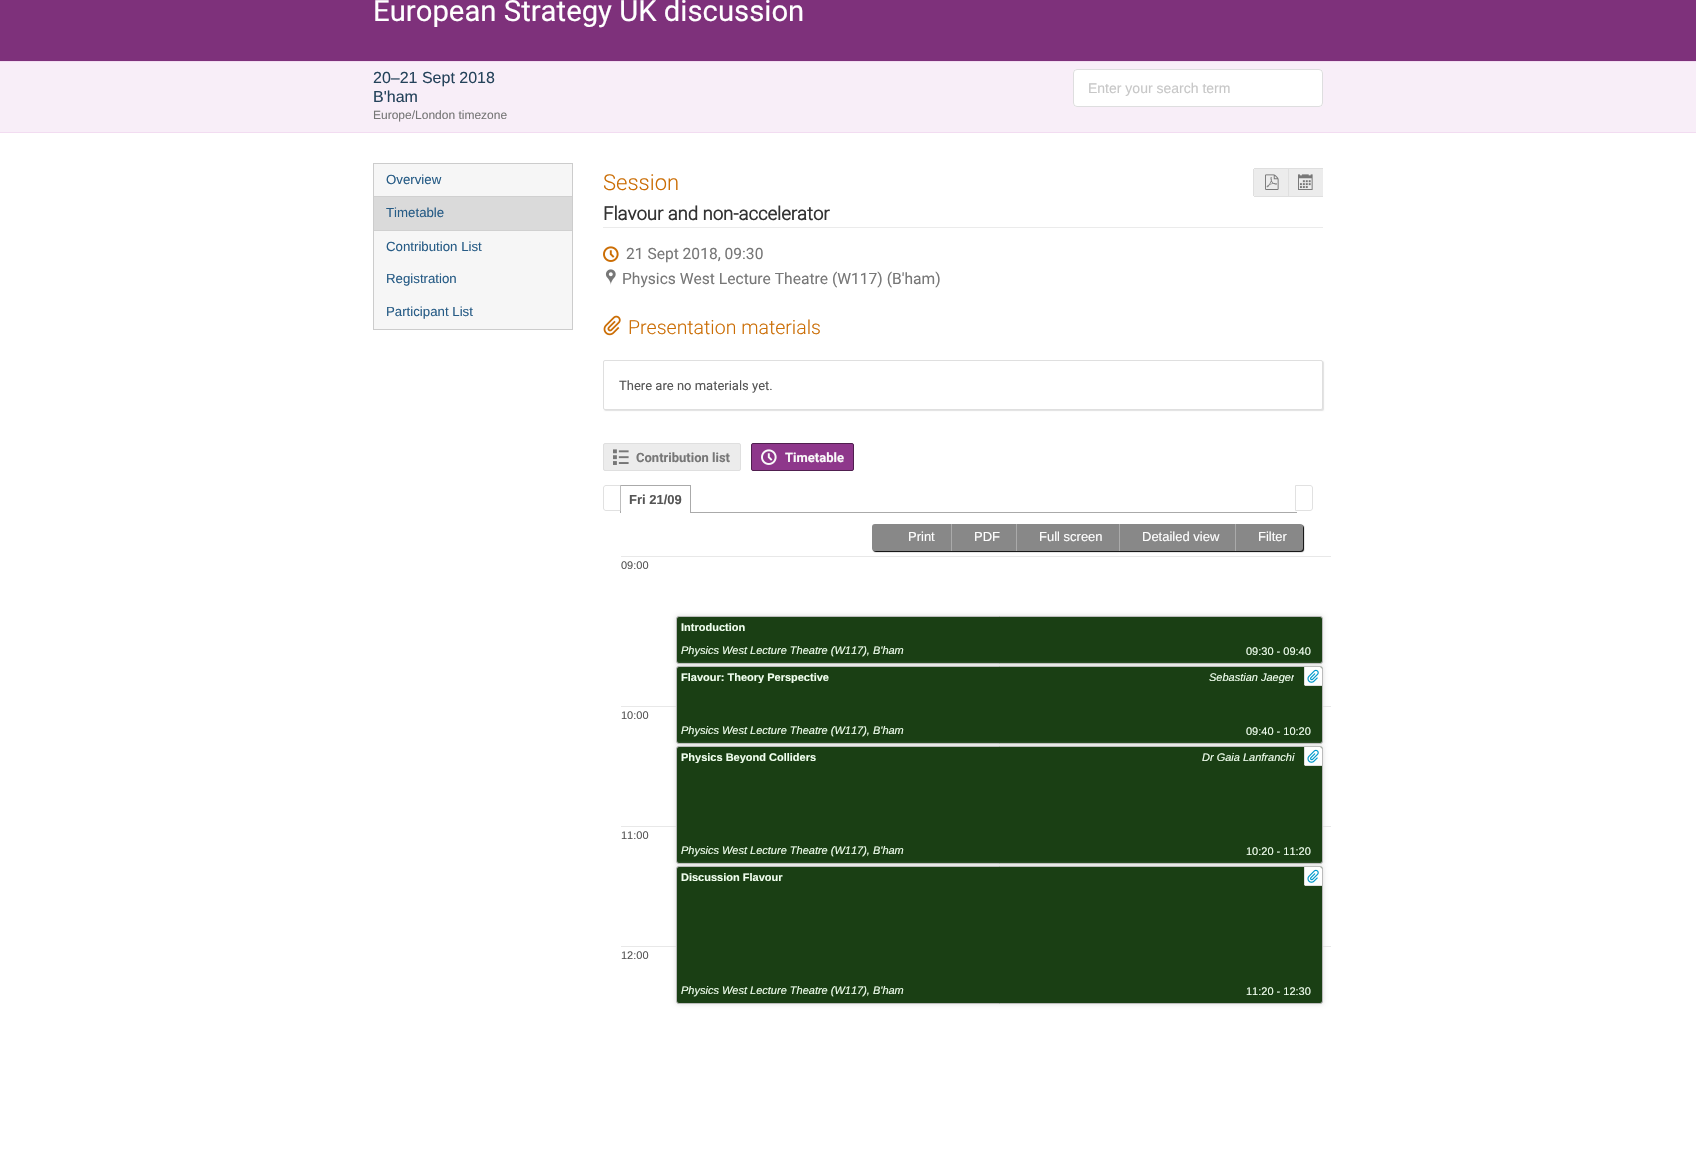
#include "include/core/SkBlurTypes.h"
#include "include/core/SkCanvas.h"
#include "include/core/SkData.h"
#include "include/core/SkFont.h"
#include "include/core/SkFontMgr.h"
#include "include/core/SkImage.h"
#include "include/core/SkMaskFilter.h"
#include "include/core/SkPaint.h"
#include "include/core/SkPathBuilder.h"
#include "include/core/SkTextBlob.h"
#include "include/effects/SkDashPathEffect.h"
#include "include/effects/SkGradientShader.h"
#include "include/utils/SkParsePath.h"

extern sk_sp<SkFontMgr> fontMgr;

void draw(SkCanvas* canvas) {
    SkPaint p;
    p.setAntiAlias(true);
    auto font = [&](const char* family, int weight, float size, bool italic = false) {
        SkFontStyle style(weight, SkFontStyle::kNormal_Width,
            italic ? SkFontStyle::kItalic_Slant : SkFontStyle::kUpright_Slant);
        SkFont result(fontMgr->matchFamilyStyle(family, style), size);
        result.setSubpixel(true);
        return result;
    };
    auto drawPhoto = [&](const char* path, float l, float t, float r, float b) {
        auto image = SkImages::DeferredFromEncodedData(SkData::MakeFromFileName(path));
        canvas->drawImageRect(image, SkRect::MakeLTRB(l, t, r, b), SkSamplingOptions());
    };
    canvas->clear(0xFFFFFFFF);
    p.setColor(0xFF7E317B);
    canvas->drawRect(SkRect::MakeLTRB(0, 0, 1696, 61), p);
    auto font1 = font("Roboto", 400, 29.3f);
    p.setColor(0xFFFFFFFF);
    canvas->drawString("European Strategy UK discussion", 373, 21, font1, p);
    {
        const struct { float l, t, r, b; SkColor color; } items[] = {
            {0, 62, 1696, 132, 0xFFF8EEF8},
            {0, 61, 1696, 62, 0xFFF2DCF1},
            {0, 132, 1696, 133, 0xFFF2DCF1},
        };
        for (auto [l, t, r, b, color] : items) {
            p.setColor(color);
            canvas->drawRect(SkRect::MakeLTRB(l, t, r, b), p);
        }
    }
    auto font2 = font("Liberation Sans", 400, 16);
    p.setColor(0xFF24425A);
    canvas->drawString("20–21 Sept 2018", 373, 83, font2, p);
    canvas->drawString("B'ham", 373, 102, font2, p);
    auto font3 = font("Liberation Sans", 400, 12);
    p.setColor(0xFF777777);
    canvas->drawString("Europe/London timezone", 373, 119, font3, p);
    p.setColor(0xFFFFFFFF);
    canvas->drawRoundRect(SkRect::MakeLTRB(1073, 69, 1323, 107), 4, 4, p);
    p.setStyle(SkPaint::kStroke_Style);
    p.setStrokeWidth(1);
    p.setColor(0x26222426);
    canvas->drawRoundRect(SkRect::MakeLTRB(1073.5f, 69.5f, 1322.5f, 106.5f), 3.5f, 3.5f, p);
    auto font4 = font("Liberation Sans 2", 400, 14);
    p.setStyle(SkPaint::kFill_Style);
    p.setColor(0xFFC7C7C7);
    canvas->drawString("Enter your search term", 1088, 93, font4, p);
    p.setColor(0xFFF6F6F6);
    canvas->drawRect(SkRect::MakeLTRB(373.5f, 163.5f, 572.5f, 329.5f), p);
    p.setStyle(SkPaint::kStroke_Style);
    p.setColor(0xFFCCCCCC);
    canvas->drawRect(SkRect::MakeLTRB(373.5f, 163.5f, 572.5f, 329.5f), p);
    auto font5 = font("Liberation Sans 2", 400, 13.25f);
    p.setStyle(SkPaint::kFill_Style);
    p.setColor(0xFF275C86);
    canvas->drawString("Overview", 386, 184, font5, p);
    {
        const struct { float l, t, r, b; SkColor color; } items[] = {
            {374, 197, 572, 230, 0xFFDADADA},
            {374, 196, 572, 197, 0xFFD0D0D0},
            {374, 230, 572, 231, 0xFFD0D0D0},
        };
        for (auto [l, t, r, b, color] : items) {
            p.setColor(color);
            canvas->drawRect(SkRect::MakeLTRB(l, t, r, b), p);
        }
    }
    p.setColor(0xFF275C86);
    {
        const struct { const char* s; float x, y; } items[] = {
            {"Timetable", 386, 217},
            {"Contribution List", 386, 251},
            {"Registration", 386, 283},
            {"Participant List", 386, 316},
        };
        for (auto [s, x, y] : items) {
            canvas->drawString(s, x, y, font5, p);
        }
    }
    p.setColor(0xFFEBEBEB);
    canvas->drawRect(SkRect::MakeLTRB(603, 227, 1323, 228), p);
    auto font6 = font("Roboto", 300, 22);
    p.setColor(0xFFCB6D04);
    canvas->drawString("Session", 603, 190, font6, p);
    auto font7 = font("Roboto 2", 700, 18.5f);
    p.setColor(0xFF333333);
    canvas->drawString("Flavour and non-accelerator", 603, 220, font7, p);
    p.setColor(0xFFECECEC);
    canvas->drawPath(SkPathBuilder().moveTo(1255, 169).lineTo(1288, 169).lineTo(1288, 196).lineTo(1255, 196).cubicTo(1254.5f, 196, 1254, 195.5f, 1254, 195).lineTo(1254, 170).cubicTo(1254, 169.5f, 1254.5f, 169, 1255, 169).close().detach(), p);
    {
        const struct { float l, t, r, b; SkColor color; } items[] = {
            {1254, 168, 1323, 169, 0xFFDFDFDF},
            {1254, 196, 1323, 197, 0xFFDFDFDF},
            {1253, 169, 1254, 196, 0xFFDFDFDF},
        };
        for (auto [l, t, r, b, color] : items) {
            p.setColor(color);
            canvas->drawRect(SkRect::MakeLTRB(l, t, r, b), p);
        }
    }
    drawPhoto("media/1.png", 1265, 174, 1279, 190);
    p.setColor(0xFFECECEC);
    canvas->drawRect(SkRect::MakeLTRB(1289, 169, 1323, 196), p);
    p.setColor(0xFFDFDFDF);
    canvas->drawRect(SkRect::MakeLTRB(1288, 168, 1289, 197), p);
    drawPhoto("media/2.png", 1298, 174, 1313, 190);
    drawPhoto("media/3.png", 603, 246, 619, 262);
    auto font8 = font("Roboto", 400, 15.6f);
    p.setColor(0xFF777777);
    canvas->drawString("21 Sept 2018, 09:30", 626, 259, font8, p);
    drawPhoto("media/4.png", 605, 269, 616, 285);
    canvas->drawString("Physics West Lecture Theatre (W117) (B'ham)", 622, 284, font8, p);
    drawPhoto("media/5.png", 603, 315, 621, 336);
    auto font9 = font("Roboto", 300, 19.5f);
    p.setColor(0xFFCB6D04);
    canvas->drawString("Presentation materials", 628, 334, font9, p);
    p.setColor(0xFFE1E1E1);
    p.setMaskFilter(SkMaskFilter::MakeBlur(kNormal_SkBlurStyle, 0.5f));
    canvas->drawRoundRect(SkRect::MakeLTRB(604, 361, 1324, 411), 2, 2, p);
    p.setMaskFilter(nullptr);
    p.setColor(0xFFFFFFFF);
    canvas->drawRoundRect(SkRect::MakeLTRB(603.5f, 360.5f, 1322.5f, 409.5f), 1.5f, 1.5f, p);
    p.setStyle(SkPaint::kStroke_Style);
    p.setColor(0xFFDFDFDF);
    canvas->drawRoundRect(SkRect::MakeLTRB(603.5f, 360.5f, 1322.5f, 409.5f), 1.5f, 1.5f, p);
    auto font10 = font("Roboto", 400, 13);
    p.setStyle(SkPaint::kFill_Style);
    p.setColor(0xFF555555);
    canvas->drawString("There are no materials yet.", 619, 390, font10, p);
    p.setColor(0xFFECECEC);
    canvas->drawRoundRect(SkRect::MakeLTRB(603.5f, 443.5f, 740.5f, 470.5f), 1.5f, 1.5f, p);
    p.setStyle(SkPaint::kStroke_Style);
    p.setColor(0xFFDFDFDF);
    canvas->drawRoundRect(SkRect::MakeLTRB(603.5f, 443.5f, 740.5f, 470.5f), 1.5f, 1.5f, p);
    drawPhoto("media/6.png", 613, 449, 629, 465);
    auto font11 = font("Roboto", 700, 13);
    p.setStyle(SkPaint::kFill_Style);
    p.setColor(0xFF777777);
    canvas->drawString("Contribution list", 636, 462, font11, p);
    p.setColor(0xFF8E378B);
    canvas->drawRoundRect(SkRect::MakeLTRB(751.5f, 443.5f, 853.5f, 470.5f), 1.5f, 1.5f, p);
    p.setStyle(SkPaint::kStroke_Style);
    p.setColor(0xFF501F4F);
    canvas->drawRoundRect(SkRect::MakeLTRB(751.5f, 443.5f, 853.5f, 470.5f), 1.5f, 1.5f, p);
    drawPhoto("media/7.png", 761, 449, 777, 465);
    p.setStyle(SkPaint::kFill_Style);
    p.setColor(0xFFF9F9F9);
    canvas->drawString("Timetable", 785, 462, font11, p);
    p.setColor(0xFFAAAAAA);
    canvas->drawRect(SkRect::MakeLTRB(620, 485, 691, 486), p);
    canvas->drawRect(SkRect::MakeLTRB(620, 485, 621, 513), p);
    p.setColor(0x59FFFFFF);
    canvas->drawPath(SkPathBuilder().moveTo(606, 485).lineTo(621, 485).lineTo(621, 511).lineTo(606, 511).cubicTo(604.5f, 511, 603, 509.5f, 603, 508).lineTo(603, 488).cubicTo(603, 486.5f, 604.5f, 485, 606, 485).close().detach(), p);
    p.setStyle(SkPaint::kStroke_Style);
    p.setColor(0x59AAAAAA);
    canvas->drawPath(SkPathBuilder().moveTo(606, 485.5f).lineTo(620.5f, 485.5f).lineTo(620.5f, 510.5f).lineTo(606, 510.5f).cubicTo(604.5f, 510.5f, 603.5f, 509.5f, 603.5f, 508).lineTo(603.5f, 488).cubicTo(603.5f, 486.5f, 604.5f, 485.5f, 606, 485.5f).close().detach(), p);
    p.setColor(0xFFE1E1E1);
    canvas->drawPath(SkPathBuilder().moveTo(1295.5f, 485.5f).lineTo(1310, 485.5f).cubicTo(1311.5f, 485.5f, 1312.5f, 486.5f, 1312.5f, 488).lineTo(1312.5f, 508).cubicTo(1312.5f, 509.5f, 1311.5f, 510.5f, 1310, 510.5f).lineTo(1295.5f, 510.5f).close().detach(), p);
    p.setStyle(SkPaint::kFill_Style);
    p.setColor(0xFFAAAAAA);
    canvas->drawRect(SkRect::MakeLTRB(691, 512, 1297, 513), p);
    canvas->drawRect(SkRect::MakeLTRB(690, 485, 691, 513), p);
    auto font12 = font("Liberation Sans", 700, 13);
    p.setColor(0xFF555555);
    canvas->drawString("Fri 21/09", 629, 504, font12, p);
    p.setColor(0xFF000000);
    p.setMaskFilter(SkMaskFilter::MakeBlur(kNormal_SkBlurStyle, 0.5f));
    canvas->drawRoundRect(SkRect::MakeLTRB(873, 525, 1304, 552), 3, 3, p);
    p.setMaskFilter(nullptr);
    p.setColor(0xFF888888);
    canvas->drawRoundRect(SkRect::MakeLTRB(872, 524, 1303, 551), 3, 3, p);
    auto font13 = font("Liberation Sans", 400, 13);
    p.setColor(0xFFFFFFFF);
    canvas->drawString("Print", 908, 541, font13, p);
    p.setColor(0xFFAAAAAA);
    canvas->drawRect(SkRect::MakeLTRB(951, 524, 952, 551), p);
    p.setColor(0xFFFFFFFF);
    canvas->drawString("PDF", 974, 541, font13, p);
    p.setColor(0xFFAAAAAA);
    canvas->drawRect(SkRect::MakeLTRB(1016, 524, 1017, 551), p);
    p.setColor(0xFFFFFFFF);
    canvas->drawString("Full screen", 1039, 541, font13, p);
    p.setColor(0xFFAAAAAA);
    canvas->drawRect(SkRect::MakeLTRB(1119, 524, 1120, 551), p);
    p.setColor(0xFFFFFFFF);
    canvas->drawString("Detailed view", 1142, 541, font13, p);
    p.setColor(0xFFAAAAAA);
    canvas->drawRect(SkRect::MakeLTRB(1235, 524, 1236, 551), p);
    p.setColor(0xFFFFFFFF);
    canvas->drawString("Filter", 1258, 541, font13, p);
    p.setColor(0xFFE8E8E8);
    canvas->drawRect(SkRect::MakeLTRB(621, 556, 1331, 557), p);
    auto font14 = font("Liberation Sans", 400, 11);
    p.setColor(0xFF555555);
    canvas->drawString("09:00", 621, 569, font14, p);
    p.setColor(0xFFE8E8E8);
    canvas->drawRect(SkRect::MakeLTRB(621, 706, 1331, 707), p);
    p.setColor(0xFF555555);
    canvas->drawString("10:00", 621, 719, font14, p);
    p.setColor(0xFFE8E8E8);
    canvas->drawRect(SkRect::MakeLTRB(621, 826, 1331, 827), p);
    p.setColor(0xFF555555);
    canvas->drawString("11:00", 621, 839, font14, p);
    p.setColor(0xFFE8E8E8);
    canvas->drawRect(SkRect::MakeLTRB(621, 946, 1331, 947), p);
    p.setColor(0xFF555555);
    canvas->drawString("12:00", 621, 959, font14, p);
    p.setColor(0xFFDDDDDD);
    p.setMaskFilter(SkMaskFilter::MakeBlur(kNormal_SkBlurStyle, 2.5f));
    canvas->drawRoundRect(SkRect::MakeLTRB(676, 616, 1323, 664), 3, 3, p);
    p.setMaskFilter(nullptr);
    p.setColor(0xFF1A3F14);
    canvas->drawRoundRect(SkRect::MakeLTRB(676.5f, 616.5f, 1322.5f, 663.5f), 2.5f, 2.5f, p);
    p.setStyle(SkPaint::kStroke_Style);
    p.setColor(0xFFBBBBBB);
    canvas->drawRoundRect(SkRect::MakeLTRB(676.5f, 616.5f, 1322.5f, 663.5f), 2.5f, 2.5f, p);
    auto font15 = font("Liberation Sans", 700, 11);
    p.setStyle(SkPaint::kFill_Style);
    p.setColor(0xFFF1FFEF);
    canvas->drawString("Introduction", 681, 631, font15, p);
    auto font16 = font("Liberation Sans", 400, 11, true);
    canvas->drawString("Physics West Lecture Theatre (W117), B'ham", 681, 654, font16, p);
    canvas->drawString("09:30 - 09:40", 1246, 655, font14, p);
    p.setColor(0xFFDDDDDD);
    p.setMaskFilter(SkMaskFilter::MakeBlur(kNormal_SkBlurStyle, 2.5f));
    canvas->drawRoundRect(SkRect::MakeLTRB(676, 666, 1323, 744), 3, 3, p);
    p.setMaskFilter(nullptr);
    p.setColor(0xFF1A3F14);
    canvas->drawRoundRect(SkRect::MakeLTRB(676.5f, 666.5f, 1322.5f, 743.5f), 2.5f, 2.5f, p);
    p.setStyle(SkPaint::kStroke_Style);
    p.setColor(0xFFBBBBBB);
    canvas->drawRoundRect(SkRect::MakeLTRB(676.5f, 666.5f, 1322.5f, 743.5f), 2.5f, 2.5f, p);
    canvas->save();
    canvas->clipRect(SkRect::MakeLTRB(681, 671, 829, 683));
    p.setStyle(SkPaint::kFill_Style);
    p.setColor(0xFFF1FFEF);
    canvas->drawString("Flavour: Theory Perspective", 681, 681, font15, p);
    canvas->restore();
    canvas->save();
    canvas->clipRect(SkRect::MakeLTRB(1209, 671, 1294, 683));
    canvas->drawString("Sebastian Jaeger", 1209, 681, font16, p);
    canvas->restore();
    p.setColor(0xFFFFFFFF);
    canvas->drawPath(SkPathBuilder().moveTo(1304, 667).lineTo(1320, 667).cubicTo(1321, 667, 1322, 668, 1322, 669).lineTo(1322, 686).lineTo(1306, 686).cubicTo(1305, 686, 1304, 685, 1304, 684).close().detach(), p);
    p.setColor(0xFFDFDFDF);
    canvas->drawRect(SkRect::MakeLTRB(1305, 685, 1322, 686), p);
    canvas->drawRect(SkRect::MakeLTRB(1304, 667, 1305, 685), p);
    drawPhoto("media/8.png", 1307, 669, 1319, 683);
    p.setColor(0xFFF1FFEF);
    canvas->drawString("Physics West Lecture Theatre (W117), B'ham", 681, 734, font16, p);
    canvas->drawString("09:40 - 10:20", 1246, 735, font14, p);
    p.setColor(0xFFDDDDDD);
    p.setMaskFilter(SkMaskFilter::MakeBlur(kNormal_SkBlurStyle, 2.5f));
    canvas->drawRoundRect(SkRect::MakeLTRB(676, 746, 1323, 864), 3, 3, p);
    p.setMaskFilter(nullptr);
    p.setColor(0xFF1A3F14);
    canvas->drawRoundRect(SkRect::MakeLTRB(676.5f, 746.5f, 1322.5f, 863.5f), 2.5f, 2.5f, p);
    p.setStyle(SkPaint::kStroke_Style);
    p.setColor(0xFFBBBBBB);
    canvas->drawRoundRect(SkRect::MakeLTRB(676.5f, 746.5f, 1322.5f, 863.5f), 2.5f, 2.5f, p);
    canvas->save();
    canvas->clipRect(SkRect::MakeLTRB(681, 751, 816, 763));
    p.setStyle(SkPaint::kFill_Style);
    p.setColor(0xFFF1FFEF);
    canvas->drawString("Physics Beyond Colliders", 681, 761, font15, p);
    canvas->restore();
    canvas->drawString("Dr Gaia Lanfranchi", 1202, 761, font16, p);
    p.setColor(0xFFFFFFFF);
    canvas->drawPath(SkPathBuilder().moveTo(1304, 747).lineTo(1320, 747).cubicTo(1321, 747, 1322, 748, 1322, 749).lineTo(1322, 766).lineTo(1306, 766).cubicTo(1305, 766, 1304, 765, 1304, 764).close().detach(), p);
    p.setColor(0xFFDFDFDF);
    canvas->drawRect(SkRect::MakeLTRB(1305, 765, 1322, 766), p);
    canvas->drawRect(SkRect::MakeLTRB(1304, 747, 1305, 765), p);
    drawPhoto("media/8.png", 1307, 749, 1319, 763);
    p.setColor(0xFFF1FFEF);
    canvas->drawString("Physics West Lecture Theatre (W117), B'ham", 681, 854, font16, p);
    canvas->drawString("10:20 - 11:20", 1246, 855, font14, p);
    p.setColor(0xFFDDDDDD);
    p.setMaskFilter(SkMaskFilter::MakeBlur(kNormal_SkBlurStyle, 2.5f));
    canvas->drawRoundRect(SkRect::MakeLTRB(676, 866, 1323, 1004), 3, 3, p);
    p.setMaskFilter(nullptr);
    p.setColor(0xFF1A3F14);
    canvas->drawRoundRect(SkRect::MakeLTRB(676.5f, 866.5f, 1322.5f, 1003.5f), 2.5f, 2.5f, p);
    p.setStyle(SkPaint::kStroke_Style);
    p.setColor(0xFFBBBBBB);
    canvas->drawRoundRect(SkRect::MakeLTRB(676.5f, 866.5f, 1322.5f, 1003.5f), 2.5f, 2.5f, p);
    p.setStyle(SkPaint::kFill_Style);
    p.setColor(0xFFF1FFEF);
    canvas->drawString("Discussion Flavour", 681, 881, font15, p);
    p.setColor(0xFFFFFFFF);
    canvas->drawPath(SkPathBuilder().moveTo(1304, 867).lineTo(1320, 867).cubicTo(1321, 867, 1322, 868, 1322, 869).lineTo(1322, 886).lineTo(1306, 886).cubicTo(1305, 886, 1304, 885, 1304, 884).close().detach(), p);
    p.setColor(0xFFDFDFDF);
    canvas->drawRect(SkRect::MakeLTRB(1305, 885, 1322, 886), p);
    canvas->drawRect(SkRect::MakeLTRB(1304, 867, 1305, 885), p);
    drawPhoto("media/8.png", 1307, 869, 1319, 883);
    p.setColor(0xFFF1FFEF);
    canvas->drawString("Physics West Lecture Theatre (W117), B'ham", 681, 994, font16, p);
    canvas->drawString("11:20 - 12:30", 1246, 995, font14, p);
}
